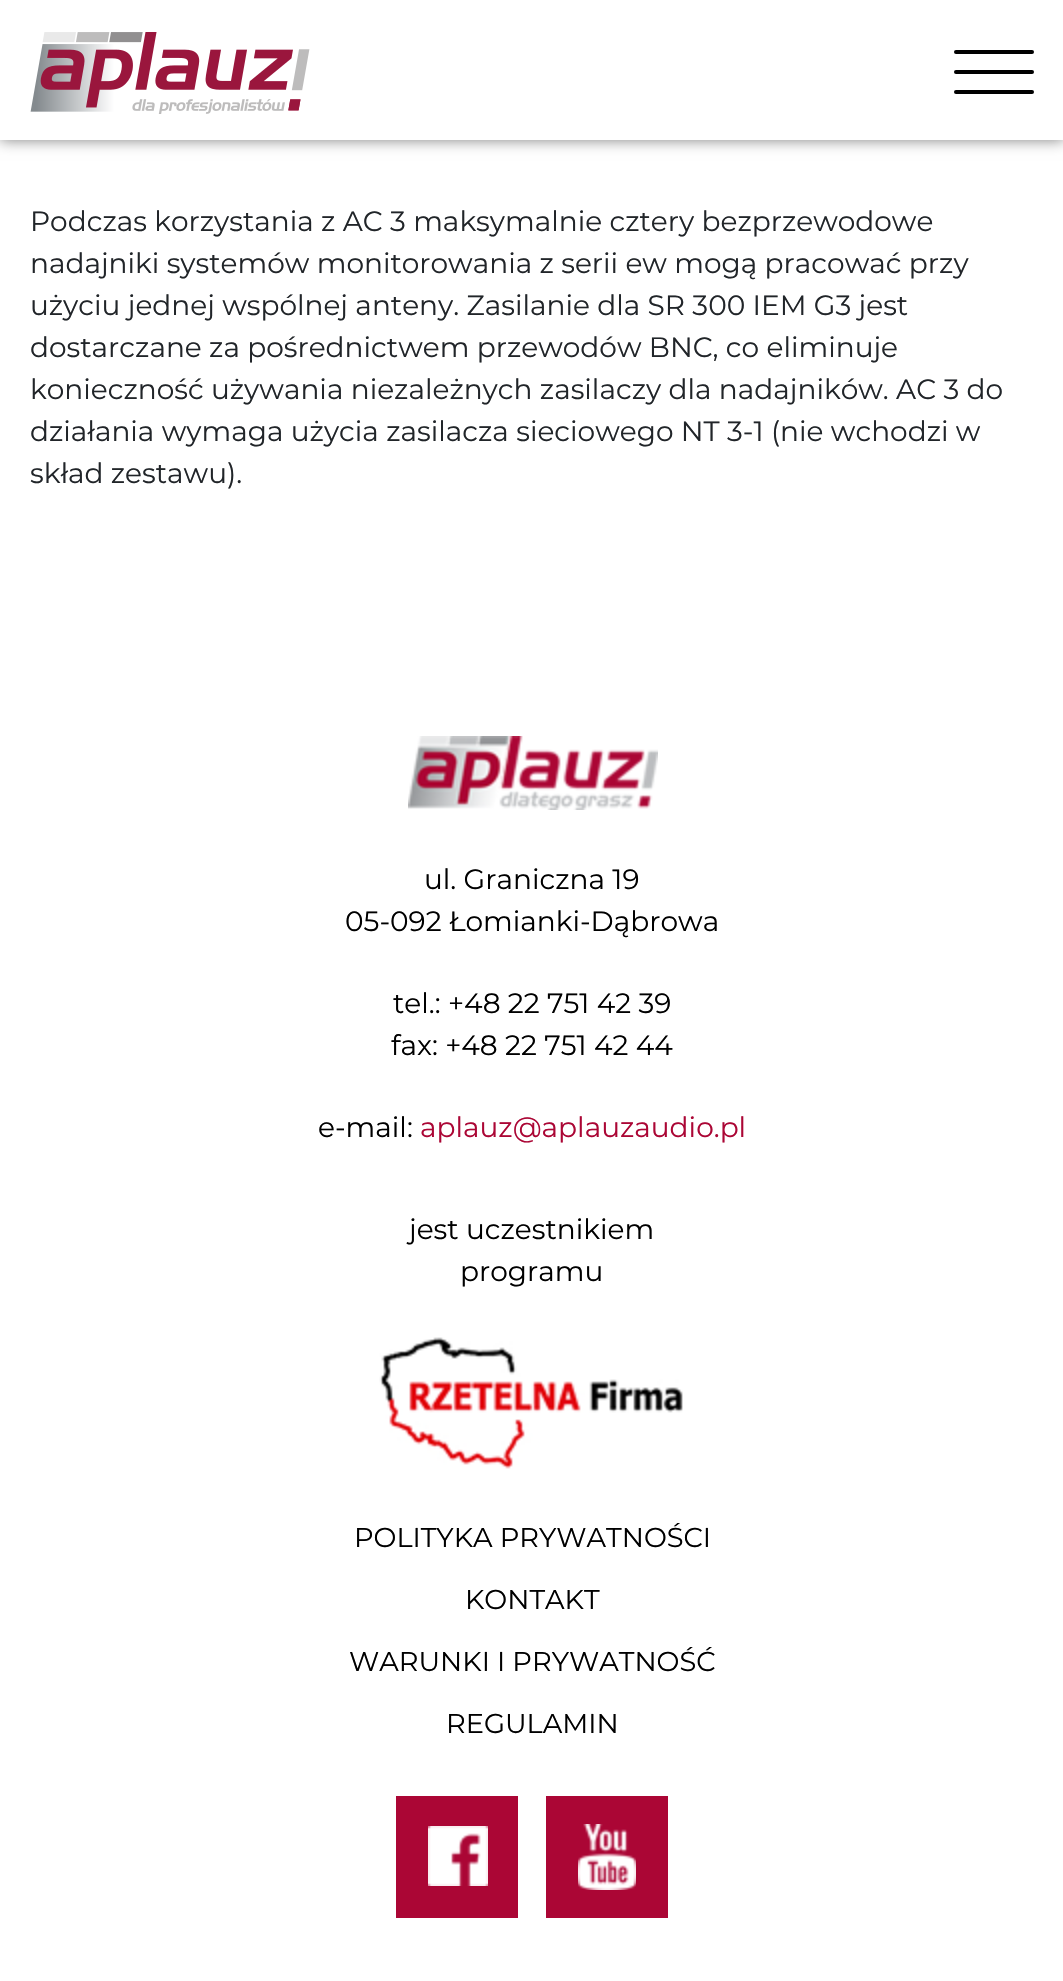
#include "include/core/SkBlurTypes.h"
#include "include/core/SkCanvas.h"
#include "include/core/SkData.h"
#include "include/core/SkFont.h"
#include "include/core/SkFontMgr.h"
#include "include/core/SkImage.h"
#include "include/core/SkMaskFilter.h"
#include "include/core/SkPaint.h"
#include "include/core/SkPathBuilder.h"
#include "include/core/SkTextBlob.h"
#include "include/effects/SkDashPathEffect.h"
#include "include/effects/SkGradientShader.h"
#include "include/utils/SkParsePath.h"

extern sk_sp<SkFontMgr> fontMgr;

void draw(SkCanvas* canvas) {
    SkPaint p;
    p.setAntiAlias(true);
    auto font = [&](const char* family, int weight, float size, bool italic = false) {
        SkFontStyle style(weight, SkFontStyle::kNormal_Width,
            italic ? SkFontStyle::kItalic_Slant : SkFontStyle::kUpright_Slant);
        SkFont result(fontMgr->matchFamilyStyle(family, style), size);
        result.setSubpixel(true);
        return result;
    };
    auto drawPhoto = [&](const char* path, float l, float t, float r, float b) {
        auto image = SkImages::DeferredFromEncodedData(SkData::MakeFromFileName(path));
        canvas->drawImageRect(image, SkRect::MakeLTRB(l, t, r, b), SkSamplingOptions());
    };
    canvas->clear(0xFFFFFFFF);
    p.setColor(0x80000000);
    p.setMaskFilter(SkMaskFilter::MakeBlur(kNormal_SkBlurStyle, 7));
    canvas->drawRect(SkRect::MakeLTRB(0, 0, 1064, 140), p);
    p.setMaskFilter(nullptr);
    p.setColor(0xFFFFFFFF);
    canvas->drawRect(SkRect::MakeLTRB(0, 0, 1063, 140), p);
    drawPhoto("media/1.png", 30, 32, 310, 114);
    p.setColor(0xFF000000);
    canvas->drawRoundRect(SkRect::MakeLTRB(954, 90, 1034, 94), 2, 2, p);
    canvas->drawRoundRect(SkRect::MakeLTRB(954, 50, 1034, 54), 2, 2, p);
    canvas->drawRoundRect(SkRect::MakeLTRB(954, 70, 1034, 74), 2, 2, p);
    auto font1 = font("Montserrat", 400, 28);
    p.setColor(0xFF212529);
    {
        const struct { const char* s; float x, y; } items[] = {
            {"Podczas korzystania z AC 3 maksymalnie cztery bezprzewodowe", 30, 231},
            {"nadajniki systemów monitorowania z serii ew mogą pracować przy", 30, 273},
            {"użyciu jednej wspólnej anteny. Zasilanie dla SR 300 IEM G3 jest", 30, 315},
            {"dostarczane za pośrednictwem przewodów BNC, co eliminuje", 30, 357},
            {"konieczność używania niezależnych zasilaczy dla nadajników. AC 3 do", 30, 399},
            {"działania wymaga użycia zasilacza sieciowego NT 3-1 (nie wchodzi w", 30, 441},
            {"skład zestawu).", 30, 483},
        };
        for (auto [s, x, y] : items) {
            canvas->drawString(s, x, y, font1, p);
        }
    }
    drawPhoto("media/2.png", 408, 736, 658, 810);
    p.setColor(0xFF000000);
    {
        const struct { const char* s; float x, y; } items[] = {
            {"ul. Graniczna 19", 424, 889},
            {"05-092 Łomianki-Dąbrowa", 345, 931},
            {"tel.: +48 22 751 42 39", 393, 1013},
            {"fax: +48 22 751 42 44", 391, 1055},
            {"e-mail:", 318, 1137},
        };
        for (auto [s, x, y] : items) {
            canvas->drawString(s, x, y, font1, p);
        }
    }
    p.setColor(0xFFAB0635);
    canvas->drawString("aplauz@aplauzaudio.pl", 420, 1137, font1, p);
    p.setColor(0xFF000000);
    canvas->drawString("jest uczestnikiem", 409, 1239, font1, p);
    canvas->drawString("programu", 460, 1281, font1, p);
    drawPhoto("media/3.png", 379, 1337, 683, 1469);
    auto font2 = font("Montserrat", 400, 27.25f);
    {
        const struct { const char* s; float x, y; } items[] = {
            {"POLITYKA PRYWATNOŚCI", 354, 1547},
            {"KONTAKT", 465, 1609},
            {"WARUNKI I PRYWATNOŚĆ", 349, 1671},
            {"REGULAMIN", 446, 1733},
        };
        for (auto [s, x, y] : items) {
            canvas->drawString(s, x, y, font2, p);
        }
    }
    p.setColor(0xFFAB0635);
    canvas->drawRect(SkRect::MakeLTRB(396, 1796, 518, 1918), p);
    drawPhoto("media/4.png", 428, 1826, 488, 1886);
    canvas->drawRect(SkRect::MakeLTRB(546, 1796, 668, 1918), p);
    drawPhoto("media/5.png", 578, 1824, 636, 1890);
}
